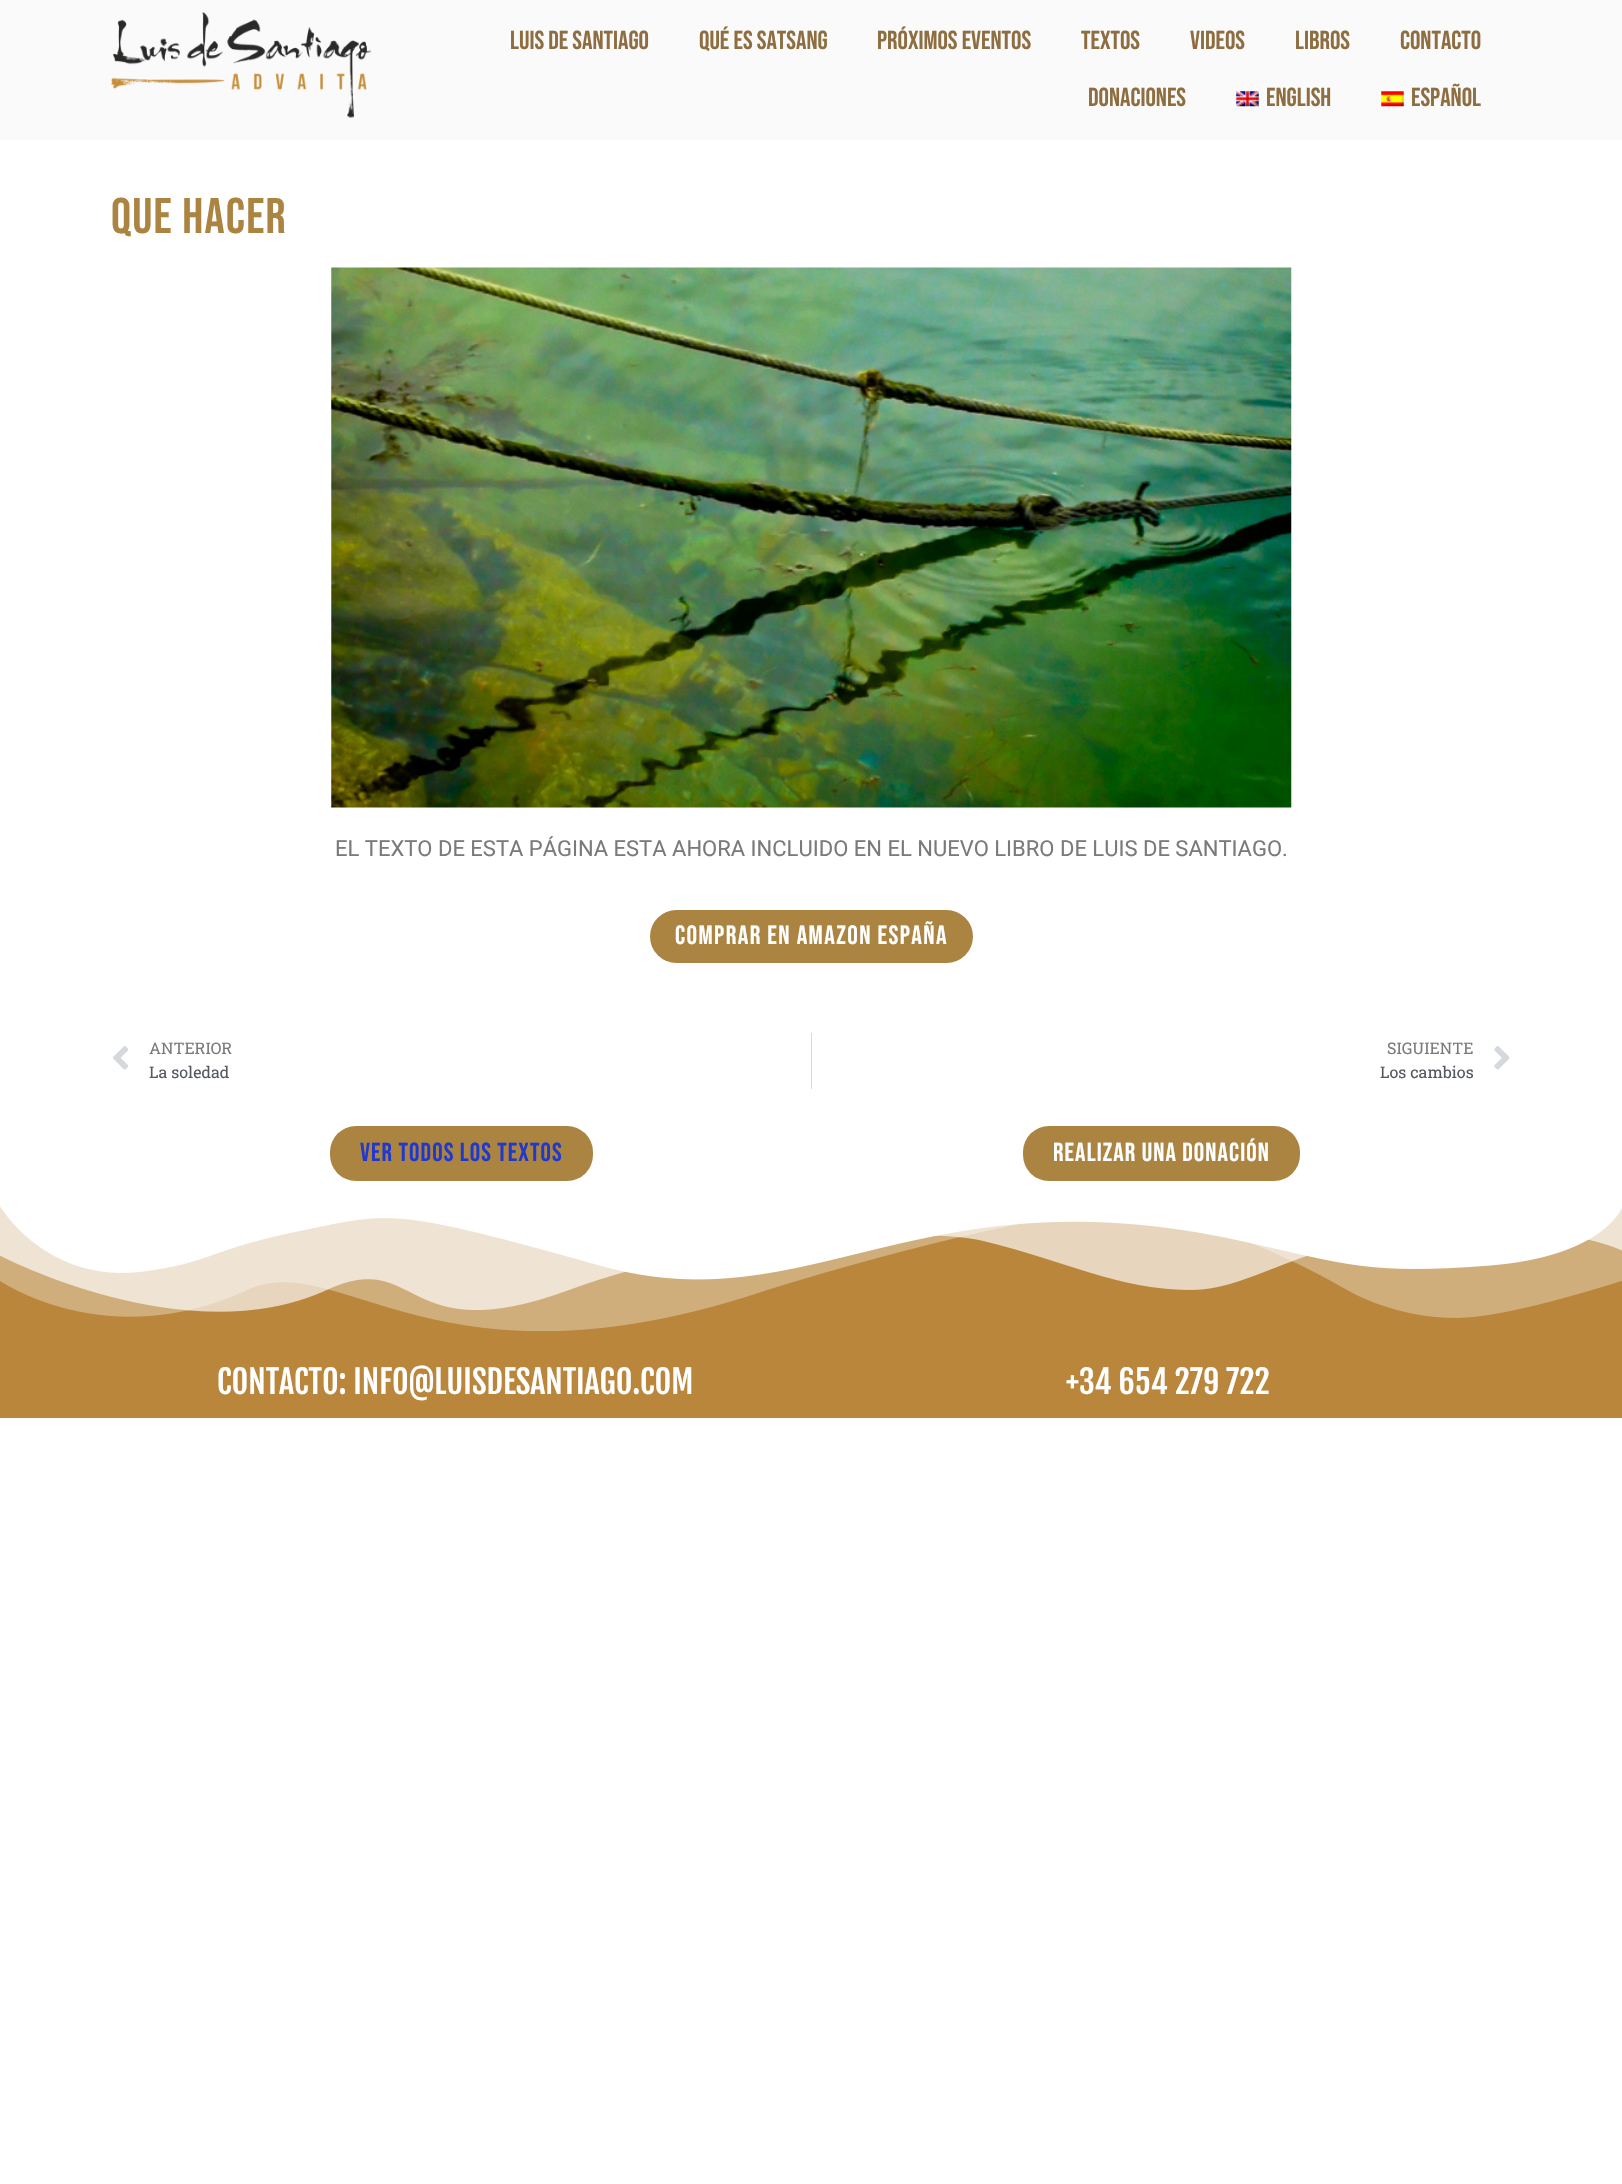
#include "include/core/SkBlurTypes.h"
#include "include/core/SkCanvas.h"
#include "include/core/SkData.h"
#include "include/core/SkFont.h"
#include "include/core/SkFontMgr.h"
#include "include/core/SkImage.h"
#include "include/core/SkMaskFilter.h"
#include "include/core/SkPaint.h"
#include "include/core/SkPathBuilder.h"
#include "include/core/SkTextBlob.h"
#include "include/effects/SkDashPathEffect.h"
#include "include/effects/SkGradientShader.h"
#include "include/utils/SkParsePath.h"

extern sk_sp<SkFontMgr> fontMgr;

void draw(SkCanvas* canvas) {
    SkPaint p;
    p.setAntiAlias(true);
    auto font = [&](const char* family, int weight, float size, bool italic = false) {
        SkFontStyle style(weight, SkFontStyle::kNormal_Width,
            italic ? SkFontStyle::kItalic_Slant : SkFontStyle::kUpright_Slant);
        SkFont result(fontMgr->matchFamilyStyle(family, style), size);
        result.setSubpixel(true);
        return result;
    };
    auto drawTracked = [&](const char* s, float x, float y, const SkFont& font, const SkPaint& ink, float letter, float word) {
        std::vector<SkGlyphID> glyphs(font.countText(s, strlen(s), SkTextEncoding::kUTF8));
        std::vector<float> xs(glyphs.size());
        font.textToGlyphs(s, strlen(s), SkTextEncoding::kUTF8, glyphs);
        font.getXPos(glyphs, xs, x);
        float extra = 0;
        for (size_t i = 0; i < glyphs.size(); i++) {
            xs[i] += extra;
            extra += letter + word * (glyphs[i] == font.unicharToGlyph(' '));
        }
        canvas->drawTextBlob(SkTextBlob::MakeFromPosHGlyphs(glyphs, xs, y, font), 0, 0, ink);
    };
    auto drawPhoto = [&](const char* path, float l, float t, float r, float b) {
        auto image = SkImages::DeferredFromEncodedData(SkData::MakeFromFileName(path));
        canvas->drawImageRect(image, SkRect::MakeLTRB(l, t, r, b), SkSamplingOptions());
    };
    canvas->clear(0xFFFFFFFF);
    p.setColor(0xFFFAFAFA);
    canvas->drawRect(SkRect::MakeLTRB(0, 0, 1622, 140), p);
    drawPhoto("media/1.png", 111, 12, 372, 118);
    auto font1 = font("Bebas Neue", 400, 26);
    p.setColor(0xFF8E6D40);
    {
        const struct { const char* s; float x, y; } items[] = {
            {"LUIS DE SANTIAGO", 510, 49},
            {"QUÉ ES SATSANG", 699, 49},
            {"PRÓXIMOS EVENTOS", 877, 49},
            {"TEXTOS", 1081, 49},
            {"VIDEOS", 1190, 49},
            {"LIBROS", 1295, 49},
            {"CONTACTO", 1400, 49},
            {"DONACIONES", 1088, 106},
        };
        for (auto [s, x, y] : items) {
            canvas->drawString(s, x, y, font1, p);
        }
    }
    drawPhoto("media/2.png", 1236, 91, 1259, 107);
    canvas->drawString("English", 1266, 106, font1, p);
    drawPhoto("media/3.png", 1381, 91, 1404, 107);
    canvas->drawString("Español", 1411, 106, font1, p);
    auto font2 = font("Bebas Neue", 400, 50);
    p.setColor(0xFFAB8442);
    drawTracked("Que hacer", 111, 233, font2, p, 1.25f, 0);
    drawPhoto("media/4.png", 331, 267, 1292, 808);
    auto font3 = font("Roboto", 400, 22);
    p.setColor(0xFF7A7A7A);
    canvas->drawString("EL TEXTO DE ESTA PÁGINA ESTA AHORA INCLUIDO EN EL NUEVO LIBRO DE LUIS DE SANTIAGO.", 335, 856, font3, p);
    p.setColor(0xFFAB8442);
    canvas->drawRoundRect(SkRect::MakeLTRB(650, 910, 973, 963), 26.5f, 26.5f, p);
    auto font4 = font("Bebas Neue", 400, 26.4f);
    p.setColor(0xFFFFFFFF);
    drawTracked("COMPRAR EN AMAZON ESPAñA", 675, 944, font4, p, 1.4f, 0);
    drawPhoto("media/5.png", 113, 1046, 129, 1070);
    auto font5 = font("Roboto Slab", 400, 16);
    p.setColor(0xFF7A7A7A);
    canvas->drawString("ANTERIOR", 149, 1054, font5, p);
    p.setColor(0xFF54595F);
    canvas->drawString("La soledad", 149, 1078, font5, p);
    p.setColor(0xFFD5D8DC);
    canvas->drawRect(SkRect::MakeLTRB(811, 1033, 812, 1089), p);
    p.setColor(0xFF7A7A7A);
    canvas->drawString("SIGUIENTE", 1387, 1054, font5, p);
    p.setColor(0xFF54595F);
    canvas->drawString("Los cambios", 1380, 1078, font5, p);
    drawPhoto("media/6.png", 1494, 1046, 1510, 1070);
    p.setColor(0xFFAB8442);
    canvas->drawRoundRect(SkRect::MakeLTRB(330, 1126, 593, 1181), 26, 26, p);
    p.setColor(0xFF2038CB);
    drawTracked("VER TODOS LOS TEXTOS", 360, 1161, font1, p, 1.1f, 0);
    p.setColor(0xFFAB8442);
    canvas->drawRoundRect(SkRect::MakeLTRB(1023, 1126, 1300, 1181), 26, 26, p);
    p.setColor(0xFFFFFFFF);
    drawTracked("REALIZAR UNA DONACIÓN", 1053, 1161, font1, p, 1.1f, 0);
    p.setColor(0xFFB9863B);
    canvas->drawRect(SkRect::MakeLTRB(0, 1206, 1622, 1418), p);
    drawPhoto("media/7.png", 0, 1206, 1622, 1331);
    auto font6 = font("Fjalla One", 400, 32);
    p.setColor(0xFFFFFFFF);
    canvas->drawString("CONTACTO: INFO@LUISDESANTIAGO.COM", 217, 1394, font6, p);
    canvas->drawString("+34 654 279 722", 1066, 1394, font6, p);
}
